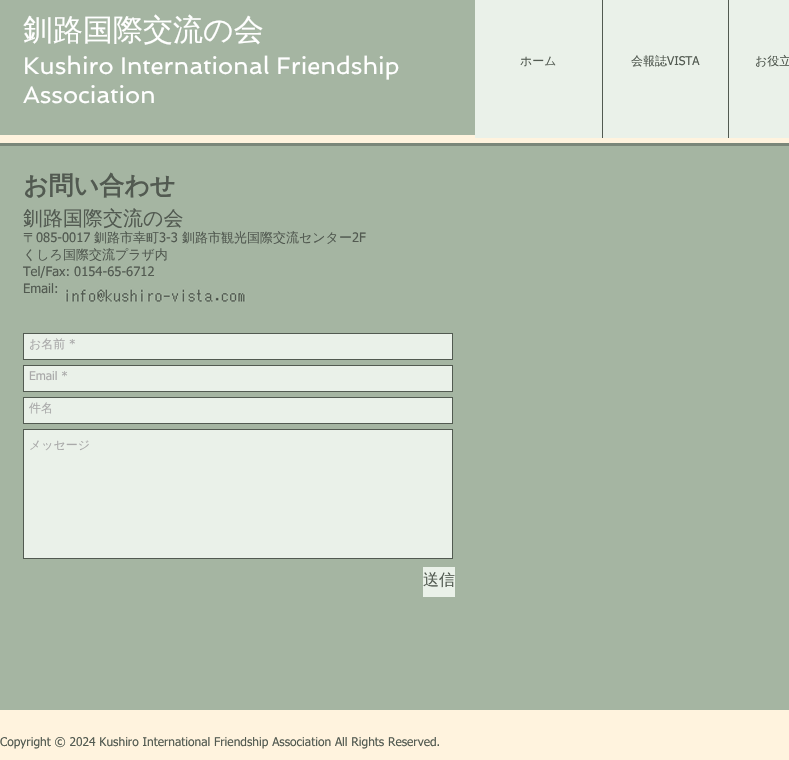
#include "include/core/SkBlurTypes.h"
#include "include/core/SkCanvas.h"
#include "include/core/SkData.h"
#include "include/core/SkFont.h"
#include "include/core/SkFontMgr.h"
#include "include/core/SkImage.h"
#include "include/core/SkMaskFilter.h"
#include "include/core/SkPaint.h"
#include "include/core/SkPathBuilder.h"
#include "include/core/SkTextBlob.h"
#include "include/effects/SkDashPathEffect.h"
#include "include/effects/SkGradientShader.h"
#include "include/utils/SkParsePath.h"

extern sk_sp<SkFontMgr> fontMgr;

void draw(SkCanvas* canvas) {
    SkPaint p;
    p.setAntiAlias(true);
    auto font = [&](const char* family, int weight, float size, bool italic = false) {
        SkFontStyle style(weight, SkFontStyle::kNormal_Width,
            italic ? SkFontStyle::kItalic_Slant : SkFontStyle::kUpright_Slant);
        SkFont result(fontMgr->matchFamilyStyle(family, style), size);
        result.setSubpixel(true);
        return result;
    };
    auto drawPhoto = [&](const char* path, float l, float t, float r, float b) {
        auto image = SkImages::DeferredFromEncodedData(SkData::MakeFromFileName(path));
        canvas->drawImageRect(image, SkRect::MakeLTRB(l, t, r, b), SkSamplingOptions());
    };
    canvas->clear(0xFFFFF3DE);
    p.setColor(0xFFA5B5A2);
    canvas->drawRect(SkRect::MakeLTRB(0, 0, 475, 135), p);
    auto font1 = font("WenQuanYi Zen Hei", 500, 30);
    p.setColor(0xFFFFFFFF);
    canvas->drawString("釧路国際交流の会", 23, 40, font1, p);
    auto font2 = font("Spinnaker", 400, 24);
    canvas->drawString("Kushiro International Friendship", 23, 74, font2, p);
    canvas->drawString("Association", 23, 103, font2, p);
    p.setColor(0xFFEAF1E9);
    canvas->drawRect(SkRect::MakeLTRB(475, 0, 789, 138), p);
    auto font3 = font("WenQuanYi Zen Hei", 500, 12);
    p.setColor(0xFF525A51);
    canvas->drawString("ホーム", 520, 65, font3, p);
    canvas->drawRect(SkRect::MakeLTRB(602, 0, 603, 138), p);
    canvas->drawString("会報誌", 631, 65, font3, p);
    auto font4 = font("tahoma", 400, 12);
    canvas->drawString("VISTA", 667, 65, font4, p);
    canvas->drawRect(SkRect::MakeLTRB(728, 0, 729, 138), p);
    canvas->drawString("お役立", 755, 65, font3, p);
    p.setColor(0xFF7B877A);
    canvas->drawRect(SkRect::MakeLTRB(0, 143, 789, 146), p);
    p.setColor(0xFFA5B5A2);
    canvas->drawRect(SkRect::MakeLTRB(0, 146, 789, 710), p);
    auto font5 = font("WenQuanYi Zen Hei", 700, 25);
    p.setColor(0xFF525A51);
    canvas->drawString("お問い合わせ", 23, 194, font5, p);
    auto font6 = font("WenQuanYi Zen Hei", 500, 20);
    canvas->drawString("釧路国際交流の会", 23, 225, font6, p);
    auto font7 = font("WenQuanYi Zen Hei", 500, 13);
    canvas->drawString("〒", 23, 242, font7, p);
    auto font8 = font("tahoma", 400, 13);
    canvas->drawString("085-0017", 36, 242, font8, p);
    canvas->drawString("釧路市幸町", 94, 242, font7, p);
    canvas->drawString("3-3", 159, 242, font8, p);
    canvas->drawString("釧路市観光国際交流センター", 182, 242, font7, p);
    canvas->drawString("2F", 352, 242, font8, p);
    canvas->drawString("くしろ国際交流プラザ内", 23, 259, font7, p);
    canvas->drawString("Tel/Fax: 0154-65-6712", 23, 276, font8, p);
    canvas->drawString("Email:", 23, 293, font8, p);
    drawPhoto("media/1.png", 65, 288, 246, 302);
    p.setColor(0xFFEAF1E9);
    canvas->drawRect(SkRect::MakeLTRB(23.5f, 333.5f, 452.5f, 359.5f), p);
    p.setStyle(SkPaint::kStroke_Style);
    p.setStrokeWidth(1);
    p.setColor(0xFF525A51);
    canvas->drawRect(SkRect::MakeLTRB(23.5f, 333.5f, 452.5f, 359.5f), p);
    p.setStyle(SkPaint::kFill_Style);
    p.setColor(0xFFA9A9A9);
    canvas->drawString("お名前", 29, 348, font3, p);
    canvas->drawString("*", 69, 348, font4, p);
    p.setColor(0xFFEAF1E9);
    canvas->drawRect(SkRect::MakeLTRB(23.5f, 365.5f, 452.5f, 391.5f), p);
    p.setStyle(SkPaint::kStroke_Style);
    p.setColor(0xFF525A51);
    canvas->drawRect(SkRect::MakeLTRB(23.5f, 365.5f, 452.5f, 391.5f), p);
    p.setStyle(SkPaint::kFill_Style);
    p.setColor(0xFFA9A9A9);
    canvas->drawString("Email *", 29, 380, font4, p);
    p.setColor(0xFFEAF1E9);
    canvas->drawRect(SkRect::MakeLTRB(23.5f, 397.5f, 452.5f, 423.5f), p);
    p.setStyle(SkPaint::kStroke_Style);
    p.setColor(0xFF525A51);
    canvas->drawRect(SkRect::MakeLTRB(23.5f, 397.5f, 452.5f, 423.5f), p);
    p.setStyle(SkPaint::kFill_Style);
    p.setColor(0xFFA9A9A9);
    canvas->drawString("件名", 29, 412, font3, p);
    p.setColor(0xFFEAF1E9);
    canvas->drawRect(SkRect::MakeLTRB(23.5f, 429.5f, 452.5f, 558.5f), p);
    p.setStyle(SkPaint::kStroke_Style);
    p.setColor(0xFF525A51);
    canvas->drawRect(SkRect::MakeLTRB(23.5f, 429.5f, 452.5f, 558.5f), p);
    p.setStyle(SkPaint::kFill_Style);
    p.setColor(0xFFA9A9A9);
    canvas->drawString("メッセージ", 29, 449, font3, p);
    p.setColor(0xFFEAF1E9);
    canvas->drawRect(SkRect::MakeLTRB(423, 567, 455, 597), p);
    auto font9 = font("WenQuanYi Zen Hei", 500, 16);
    p.setColor(0xFF525A51);
    canvas->drawString("送信", 423, 585, font9, p);
    canvas->drawString("Copyright © 2024 Kushiro International Friendship Association All Rights Reserved.", 0, 746, font4, p);
}
